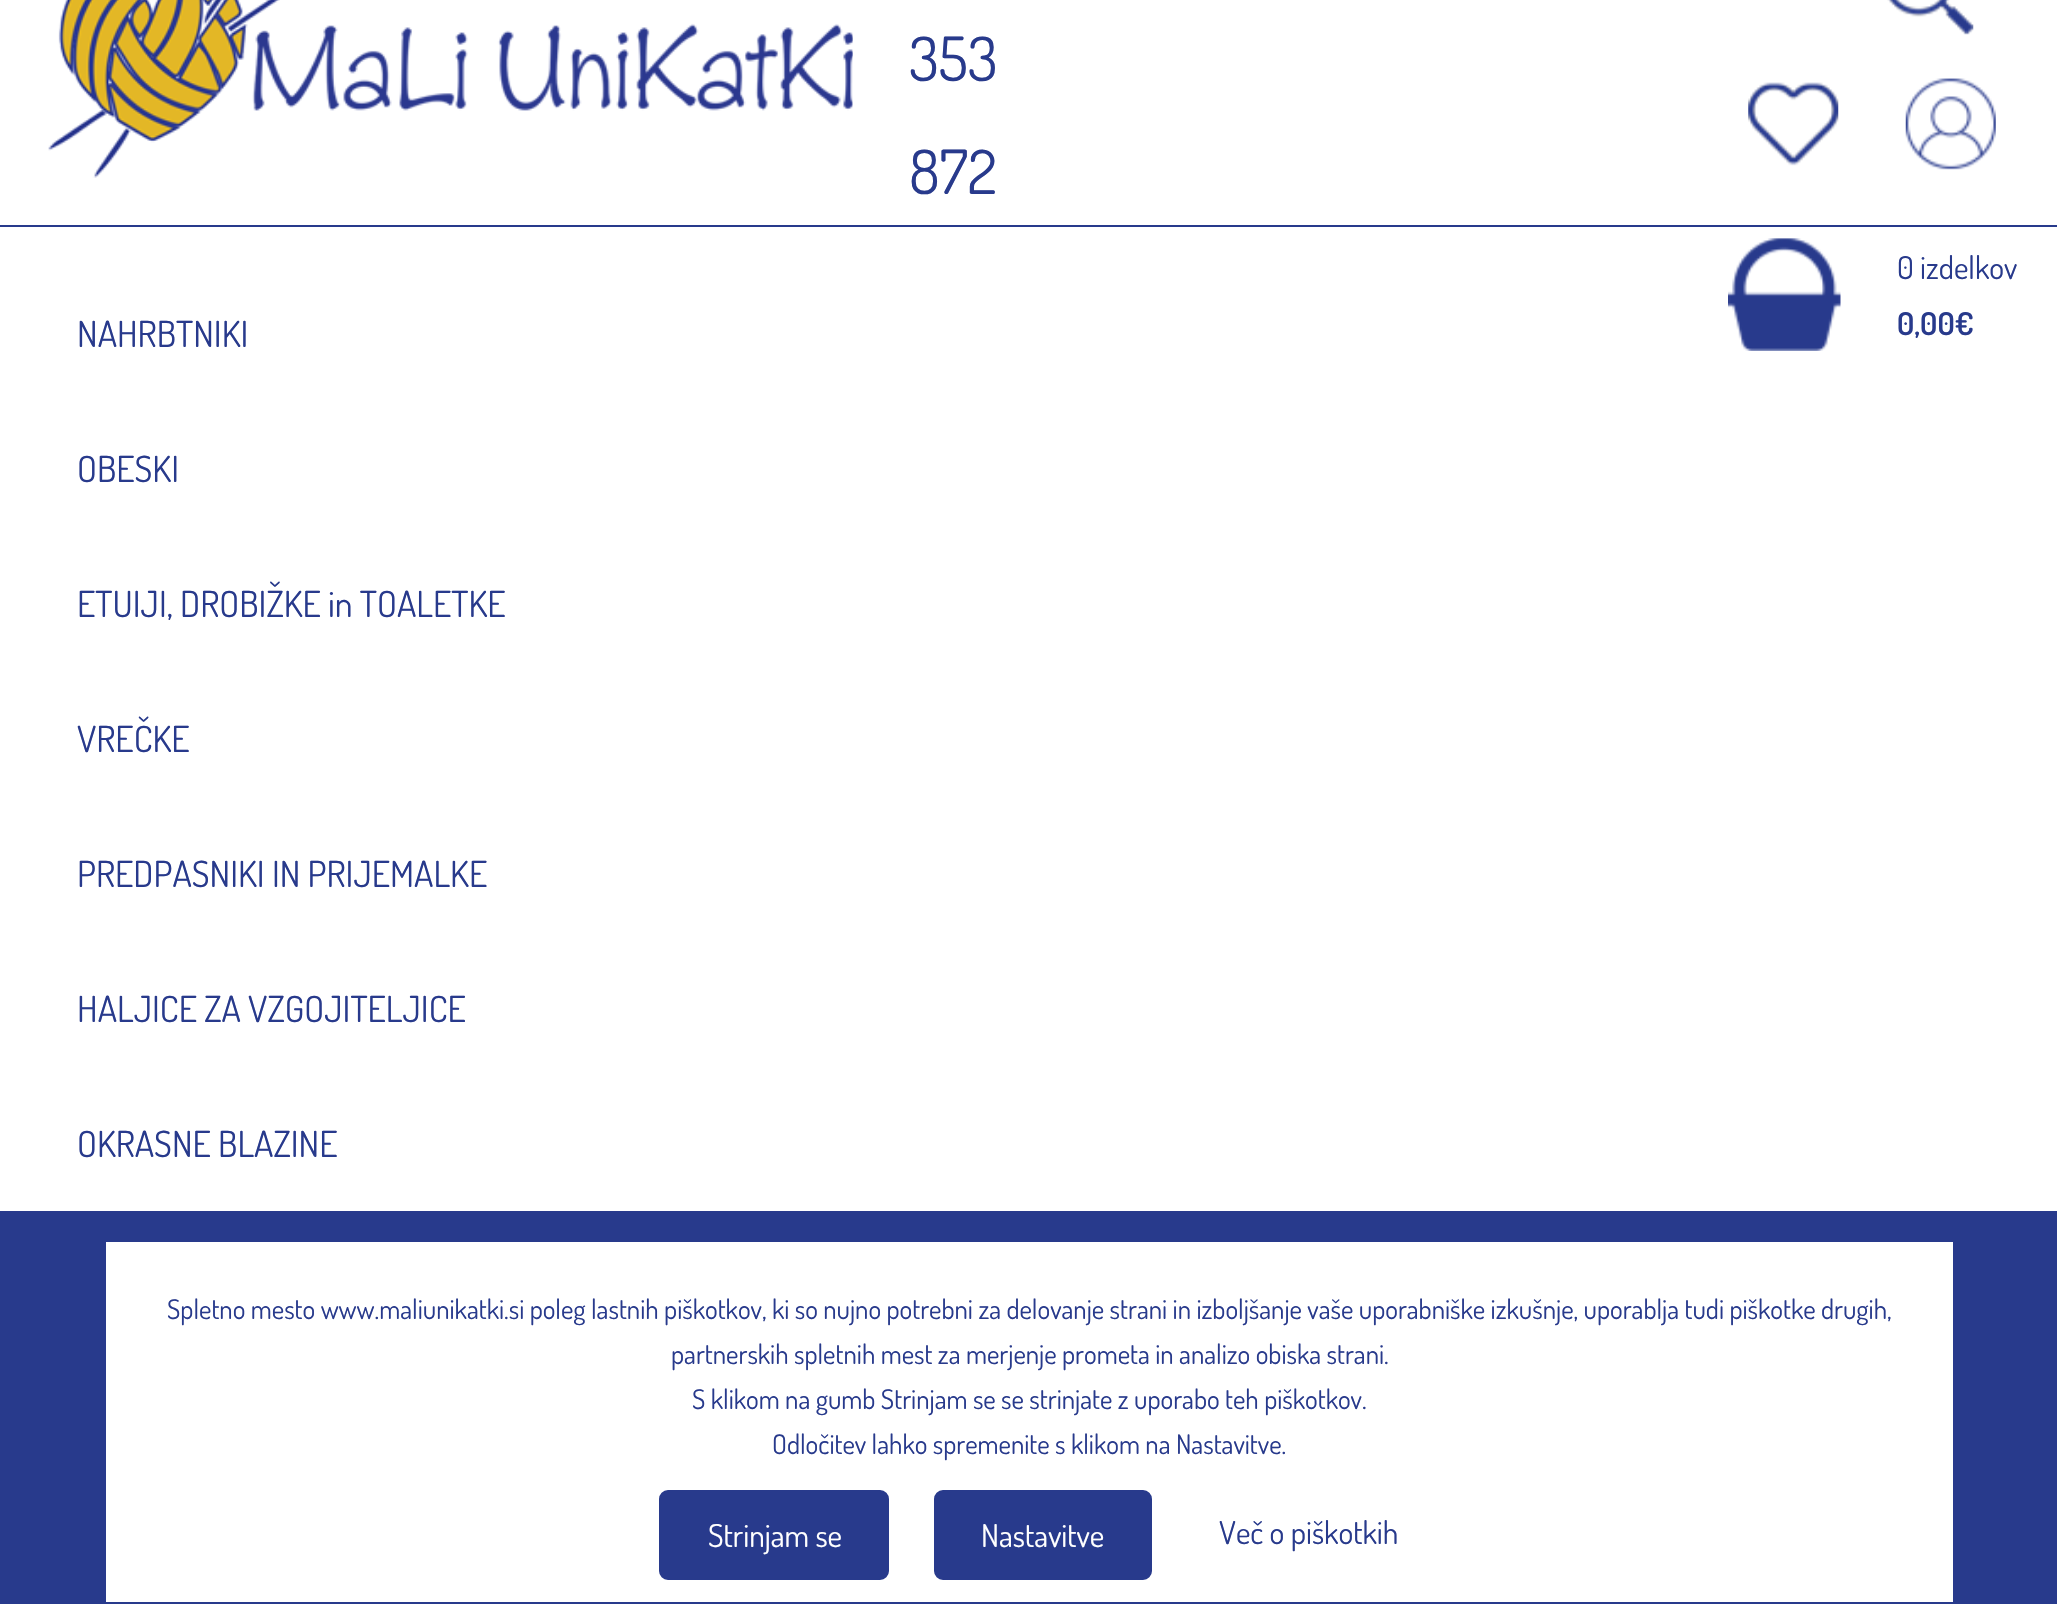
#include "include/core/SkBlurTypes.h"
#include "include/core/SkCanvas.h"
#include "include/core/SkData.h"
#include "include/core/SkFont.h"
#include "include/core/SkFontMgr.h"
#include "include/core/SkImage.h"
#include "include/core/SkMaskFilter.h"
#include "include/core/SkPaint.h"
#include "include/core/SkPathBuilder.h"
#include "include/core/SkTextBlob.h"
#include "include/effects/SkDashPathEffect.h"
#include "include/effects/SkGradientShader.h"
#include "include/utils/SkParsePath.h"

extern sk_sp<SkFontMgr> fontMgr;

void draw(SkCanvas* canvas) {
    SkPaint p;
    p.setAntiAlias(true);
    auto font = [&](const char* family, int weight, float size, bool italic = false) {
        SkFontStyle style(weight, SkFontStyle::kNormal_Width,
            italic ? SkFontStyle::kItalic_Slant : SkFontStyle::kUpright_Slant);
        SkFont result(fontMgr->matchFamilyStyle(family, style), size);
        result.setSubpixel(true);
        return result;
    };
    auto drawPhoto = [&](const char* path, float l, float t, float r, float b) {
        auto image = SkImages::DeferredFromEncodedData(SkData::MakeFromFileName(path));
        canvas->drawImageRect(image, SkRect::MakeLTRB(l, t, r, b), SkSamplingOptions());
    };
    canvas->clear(0xFF283A8C);
    p.setColor(0xFFFFFFFF);
    canvas->drawRect(SkRect::MakeLTRB(0, 0, 2057, 1211), p);
    drawPhoto("media/1.png", 48, 0, 853, 178);
    auto font1 = font("Dosis", 400, 61);
    p.setColor(0xFF283A8C);
    canvas->drawString("353", 909, 81, font1, p);
    canvas->drawString("872", 909, 194, font1, p);
    drawPhoto("media/2.png", 1887, 0, 1974, 35);
    drawPhoto("media/3.png", 1748, 82, 1839, 166);
    drawPhoto("media/4.png", 1905, 78, 1996, 170);
    canvas->drawRect(SkRect::MakeLTRB(0, 225, 2057, 227), p);
    drawPhoto("media/5.png", 1728, 238, 1841, 351);
    auto font2 = font("Dosis", 400, 31.5f);
    canvas->drawString("0 izdelkov", 1897, 279, font2, p);
    auto font3 = font("Dosis", 600, 31.5f);
    canvas->drawString("0,00€", 1897, 335, font3, p);
    auto font4 = font("Dosis", 400, 36);
    {
        const struct { const char* s; float x, y; } items[] = {
            {"NAHRBTNIKI", 77, 347},
            {"OBESKI", 77, 482},
            {"ETUIJI, DROBIŽKE in TOALETKE", 77, 617},
            {"VREČKE", 77, 752},
            {"PREDPASNIKI IN PRIJEMALKE", 77, 887},
            {"HALJICE ZA VZGOJITELJICE", 77, 1022},
            {"OKRASNE BLAZINE", 77, 1157},
        };
        for (auto [s, x, y] : items) {
            canvas->drawString(s, x, y, font4, p);
        }
    }
    p.setColor(0xFFFFFFFF);
    canvas->drawRect(SkRect::MakeLTRB(106, 1242, 1953, 1602), p);
    auto font5 = font("Dosis", 400, 27);
    p.setColor(0xFF283A8C);
    {
        const struct { const char* s; float x, y; } items[] = {
            {"Spletno mesto www.maliunikatki.si poleg lastnih piškotkov, ki so nujno potrebni za delovanje strani in izboljšanje vaše uporabniške izkušnje, uporablja tudi piškotke drugih,", 167, 1319},
            {"partnerskih spletnih mest za merjenje prometa in analizo obiska strani.", 671, 1364},
            {"S klikom na gumb Strinjam se se strinjate z uporabo teh piškotkov.", 692, 1409},
            {"Odločitev lahko spremenite s klikom na Nastavitve.", 772, 1454},
        };
        for (auto [s, x, y] : items) {
            canvas->drawString(s, x, y, font5, p);
        }
    }
    canvas->drawRoundRect(SkRect::MakeLTRB(660, 1491, 888, 1579), 8, 8, p);
    p.setStyle(SkPaint::kStroke_Style);
    p.setStrokeWidth(2);
    canvas->drawRoundRect(SkRect::MakeLTRB(660, 1491, 888, 1579), 8, 8, p);
    p.setStyle(SkPaint::kFill_Style);
    p.setColor(0xFFFFFFFF);
    canvas->drawString("Strinjam se", 708, 1547, font2, p);
    p.setColor(0xFF283A8C);
    canvas->drawRoundRect(SkRect::MakeLTRB(935, 1491, 1151, 1579), 8, 8, p);
    p.setStyle(SkPaint::kStroke_Style);
    canvas->drawRoundRect(SkRect::MakeLTRB(935, 1491, 1151, 1579), 8, 8, p);
    p.setStyle(SkPaint::kFill_Style);
    p.setColor(0xFFFFFFFF);
    canvas->drawString("Nastavitve", 981, 1547, font2, p);
    p.setColor(0xFF283A8C);
    canvas->drawString("Več o piškotkih", 1219, 1544, font2, p);
}
